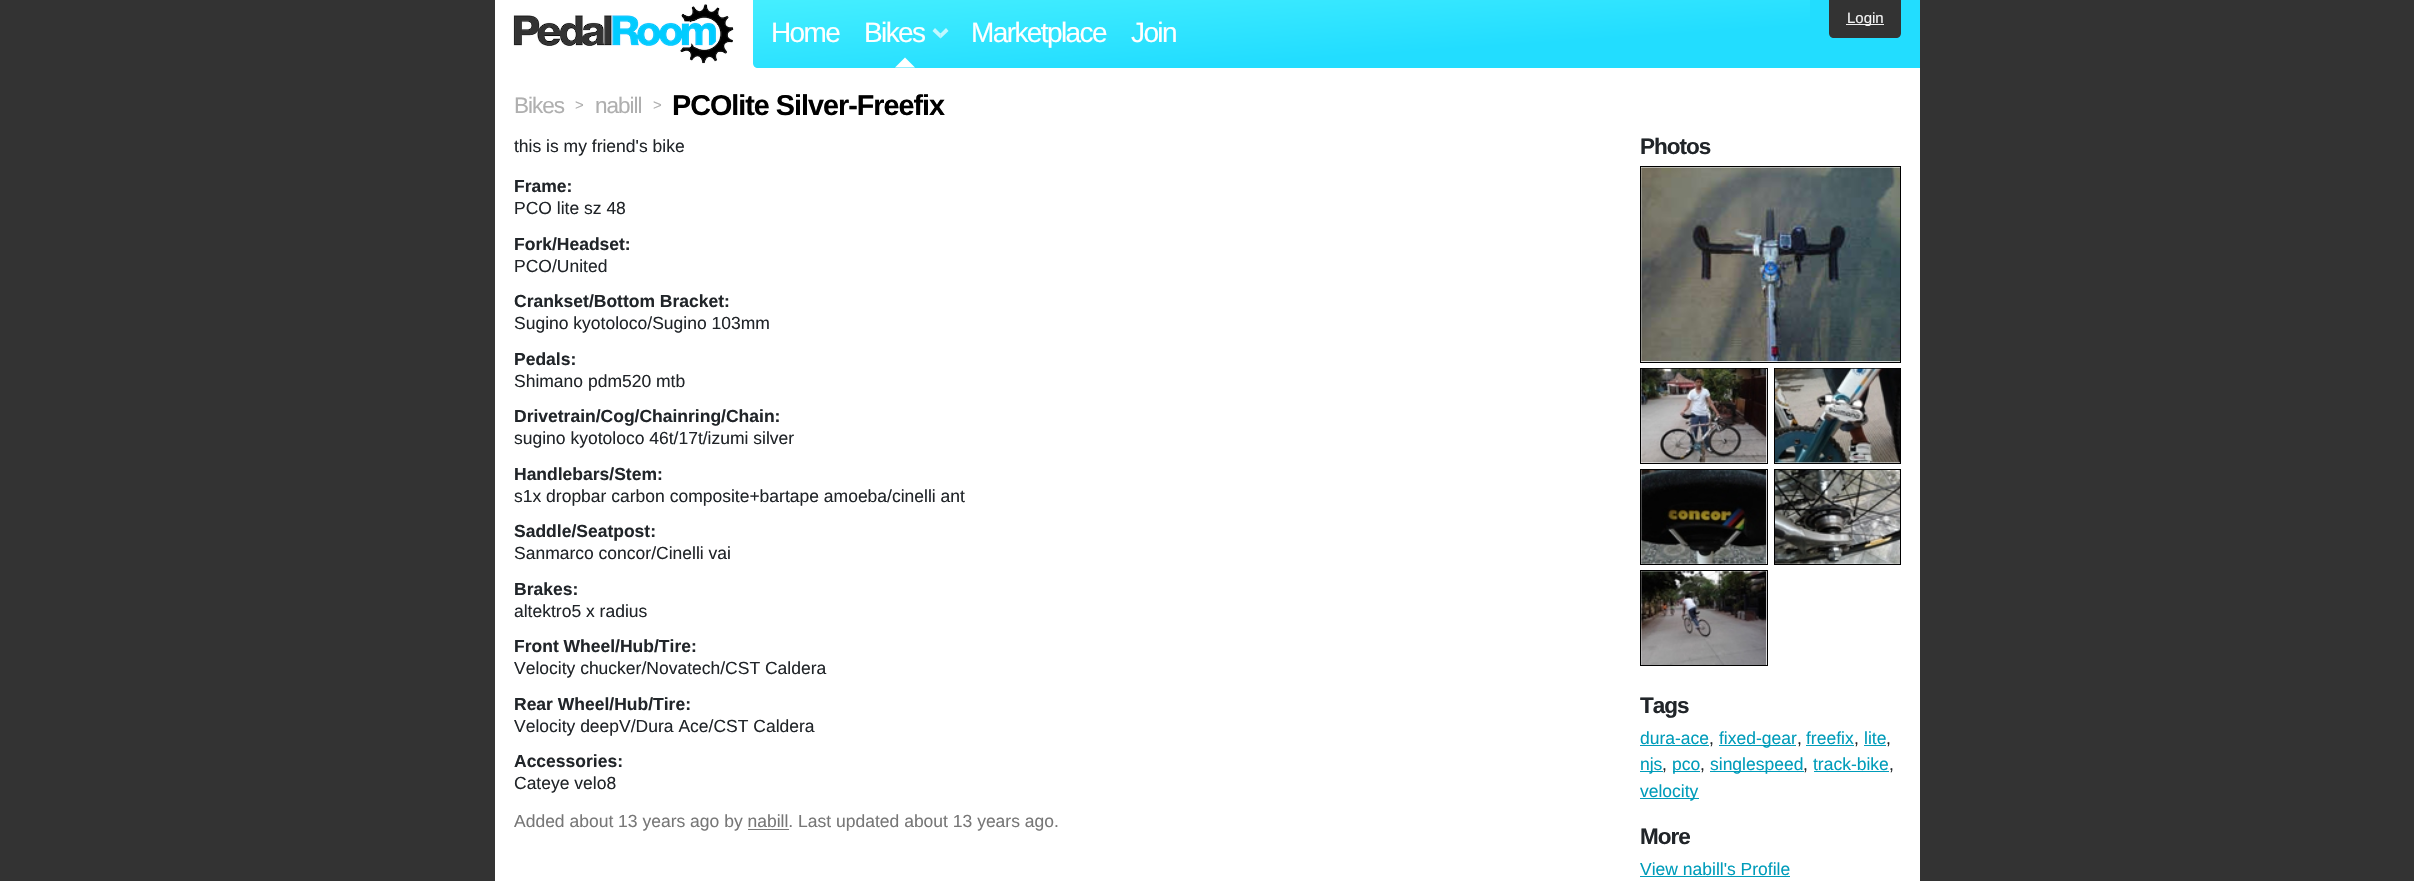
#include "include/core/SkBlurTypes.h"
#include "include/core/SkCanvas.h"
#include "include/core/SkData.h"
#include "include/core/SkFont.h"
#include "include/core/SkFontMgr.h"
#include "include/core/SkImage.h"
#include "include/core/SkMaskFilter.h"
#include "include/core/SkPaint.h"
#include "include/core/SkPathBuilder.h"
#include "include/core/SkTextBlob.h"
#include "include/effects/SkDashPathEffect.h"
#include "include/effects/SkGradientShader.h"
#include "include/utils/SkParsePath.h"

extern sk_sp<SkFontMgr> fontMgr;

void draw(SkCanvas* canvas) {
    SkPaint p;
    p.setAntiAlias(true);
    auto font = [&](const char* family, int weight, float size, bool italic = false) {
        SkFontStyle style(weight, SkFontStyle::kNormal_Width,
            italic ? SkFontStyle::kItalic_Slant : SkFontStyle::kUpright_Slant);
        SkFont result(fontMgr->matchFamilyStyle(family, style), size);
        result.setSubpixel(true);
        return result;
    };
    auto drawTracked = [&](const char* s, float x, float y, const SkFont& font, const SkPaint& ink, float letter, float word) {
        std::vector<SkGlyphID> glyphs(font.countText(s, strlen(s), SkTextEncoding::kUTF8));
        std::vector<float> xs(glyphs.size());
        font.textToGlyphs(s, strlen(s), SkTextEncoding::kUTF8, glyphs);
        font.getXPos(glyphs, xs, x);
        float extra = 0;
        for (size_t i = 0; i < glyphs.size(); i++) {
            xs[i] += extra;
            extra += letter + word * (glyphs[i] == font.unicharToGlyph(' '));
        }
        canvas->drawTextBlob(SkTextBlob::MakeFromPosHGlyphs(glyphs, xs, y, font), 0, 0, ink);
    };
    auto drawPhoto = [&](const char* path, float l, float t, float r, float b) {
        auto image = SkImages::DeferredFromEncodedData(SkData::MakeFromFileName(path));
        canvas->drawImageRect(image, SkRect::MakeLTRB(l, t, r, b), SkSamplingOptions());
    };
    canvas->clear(0xFF333333);
    p.setColor(0xFFFFFFFF);
    canvas->drawRect(SkRect::MakeLTRB(495, 0, 1920, 881), p);
    drawPhoto("media/1.png", 513, 4, 734, 64);
    p.setColor(0xFF22DDFF);
    canvas->drawRect(SkRect::MakeLTRB(1810, 0, 1920, 68), p);
    p.setColor(0xFF333333);
    canvas->drawPath(SkPathBuilder().moveTo(1829, 0).lineTo(1901, 0).lineTo(1901, 33).cubicTo(1901, 36, 1899, 38, 1896, 38).lineTo(1834, 38).cubicTo(1831, 38, 1829, 36, 1829, 33).close().detach(), p);
    p.setColor(0xFFF2F2F2);
    canvas->drawRect(SkRect::MakeLTRB(1846, 24, 1884, 25), p);
    auto font1 = font("Liberation Sans", 400, 15);
    canvas->drawString("Login", 1847, 23, font1, p);
    {
        const SkColor colors[] = {0xFF44EEFF, 0xFF22DDFF};
        const float stops[] = {0, 0.7f};
        const SkPoint ends[] = {{1277, -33}, {1286, 101}};
        p.setShader(SkGradientShader::MakeLinear(ends, colors, stops, 2, SkTileMode::kClamp));
        p.setAlpha(255);
    }
    canvas->drawPath(SkPathBuilder().moveTo(753, 0).lineTo(1810, 0).lineTo(1810, 68).lineTo(758, 68).cubicTo(755, 68, 753, 66, 753, 63).close().detach(), p);
    auto font2 = font("Liberation Sans", 400, 28);
    p.setShader(nullptr);
    p.setColor(0xFFFFFFFF);
    drawTracked("Home", 771, 42, font2, p, -1.6f, 0);
    drawTracked("Bikes", 864, 42, font2, p, -1.6f, 0);
    p.setColor(0xB3FFFFFF);
    canvas->drawPath(SkPathBuilder().moveTo(948.5f, 31).lineTo(940.5f, 38.5f).lineTo(940.5f, 33.5f).lineTo(946, 28).close().detach(), p);
    canvas->drawPath(SkPathBuilder().moveTo(940.5f, 38.5f).lineTo(932.5f, 31).lineTo(935, 28).lineTo(940.5f, 33.5f).close().detach(), p);
    p.setColor(0xFFFFFFFF);
    canvas->drawPath(SkPathBuilder().moveTo(915, 67.5f).lineTo(895, 67.5f).lineTo(905, 57.5f).close().detach(), p);
    drawTracked("Marketplace", 971, 42, font2, p, -1.6f, 0);
    drawTracked("Join", 1131, 42, font2, p, -1.6f, 0);
    auto font3 = font("Liberation Sans", 400, 22.5f);
    p.setColor(0xFFAFAFAF);
    drawTracked("Bikes", 514, 113, font3, p, -1, 0);
    drawTracked(">", 575, 110, font1, p, -1, 0);
    drawTracked("nabill", 595, 113, font3, p, -1, 0);
    drawTracked(">", 653, 110, font1, p, -1, 0);
    auto font4 = font("Liberation Sans", 700, 28.75f);
    p.setColor(0xFF000000);
    drawTracked("PCOlite Silver-Freefix", 672, 115, font4, p, -1, 0);
    auto font5 = font("Liberation Sans", 400, 17.5f);
    p.setColor(0xFF212529);
    canvas->drawString("this is my friend's bike", 514, 152, font5, p);
    auto font6 = font("Liberation Sans", 700, 17.5f);
    canvas->drawString("Frame:", 514, 192, font6, p);
    canvas->drawString("PCO lite sz 48", 514, 214, font5, p);
    canvas->drawString("Fork/Headset:", 514, 250, font6, p);
    canvas->drawString("PCO/United", 514, 272, font5, p);
    canvas->drawString("Crankset/Bottom Bracket:", 514, 307, font6, p);
    canvas->drawString("Sugino kyotoloco/Sugino 103mm", 514, 329, font5, p);
    canvas->drawString("Pedals:", 514, 365, font6, p);
    canvas->drawString("Shimano pdm520 mtb", 514, 387, font5, p);
    canvas->drawString("Drivetrain/Cog/Chainring/Chain:", 514, 422, font6, p);
    canvas->drawString("sugino kyotoloco 46t/17t/izumi silver", 514, 444, font5, p);
    canvas->drawString("Handlebars/Stem:", 514, 480, font6, p);
    canvas->drawString("s1x dropbar carbon composite+bartape amoeba/cinelli ant", 514, 502, font5, p);
    canvas->drawString("Saddle/Seatpost:", 514, 537, font6, p);
    canvas->drawString("Sanmarco concor/Cinelli vai", 514, 559, font5, p);
    canvas->drawString("Brakes:", 514, 595, font6, p);
    canvas->drawString("altektro5 x radius", 514, 617, font5, p);
    canvas->drawString("Front Wheel/Hub/Tire:", 514, 652, font6, p);
    canvas->drawString("Velocity chucker/Novatech/CST Caldera", 514, 674, font5, p);
    canvas->drawString("Rear Wheel/Hub/Tire:", 514, 710, font6, p);
    canvas->drawString("Velocity deepV/Dura Ace/CST Caldera", 514, 732, font5, p);
    canvas->drawString("Accessories:", 514, 767, font6, p);
    canvas->drawString("Cateye velo8", 514, 789, font5, p);
    p.setColor(0xFF777777);
    canvas->drawString("Added about 13 years ago by nabill. Last updated about 13 years ago.", 514, 827, font5, p);
    canvas->drawRect(SkRect::MakeLTRB(748, 829, 789, 830), p);
    auto font7 = font("Liberation Sans", 700, 22.5f);
    p.setColor(0xFF212529);
    drawTracked("Photos", 1640, 154, font7, p, -1, 0);
    p.setStyle(SkPaint::kStroke_Style);
    p.setStrokeWidth(1);
    p.setColor(0xFF000000);
    canvas->drawRect(SkRect::MakeLTRB(1640.5f, 166.5f, 1900.5f, 362.5f), p);
    drawPhoto("media/2.png", 1641, 167, 1900, 362);
    canvas->drawRect(SkRect::MakeLTRB(1640.5f, 368.5f, 1767.5f, 463.5f), p);
    drawPhoto("media/3.png", 1641, 368, 1767, 463);
    canvas->drawRect(SkRect::MakeLTRB(1774.5f, 368.5f, 1900.5f, 463.5f), p);
    drawPhoto("media/4.png", 1775, 368, 1900, 463);
    canvas->drawRect(SkRect::MakeLTRB(1640.5f, 469.5f, 1767.5f, 564.5f), p);
    canvas->drawRect(SkRect::MakeLTRB(1774.5f, 469.5f, 1900.5f, 564.5f), p);
    drawPhoto("media/5.png", 1641, 470, 1767, 564);
    drawPhoto("media/6.png", 1775, 470, 1900, 564);
    canvas->drawRect(SkRect::MakeLTRB(1640.5f, 570.5f, 1767.5f, 665.5f), p);
    drawPhoto("media/7.png", 1641, 571, 1767, 665);
    p.setStyle(SkPaint::kFill_Style);
    p.setColor(0xFF212529);
    drawTracked("Tags", 1640, 713, font7, p, -1, 0);
    p.setColor(0xFF009CBA);
    canvas->drawString("dura-ace", 1640, 744, font5, p);
    canvas->drawRect(SkRect::MakeLTRB(1640, 745, 1709, 746), p);
    p.setColor(0xFF212529);
    canvas->drawString(",", 1709, 744, font5, p);
    p.setColor(0xFF009CBA);
    canvas->drawRect(SkRect::MakeLTRB(1719, 745, 1796, 746), p);
    canvas->drawString("fixed-gear", 1719, 744, font5, p);
    p.setColor(0xFF212529);
    canvas->drawString(",", 1797, 744, font5, p);
    p.setColor(0xFF009CBA);
    canvas->drawString("freefix", 1806, 744, font5, p);
    canvas->drawRect(SkRect::MakeLTRB(1806, 745, 1854, 746), p);
    p.setColor(0xFF212529);
    canvas->drawString(",", 1854, 744, font5, p);
    p.setColor(0xFF009CBA);
    canvas->drawString("lite", 1864, 744, font5, p);
    canvas->drawRect(SkRect::MakeLTRB(1864, 745, 1886, 746), p);
    p.setColor(0xFF212529);
    canvas->drawString(",", 1886, 744, font5, p);
    p.setColor(0xFF009CBA);
    canvas->drawRect(SkRect::MakeLTRB(1640, 771, 1663, 772), p);
    canvas->drawString("njs", 1640, 770, font5, p);
    p.setColor(0xFF212529);
    canvas->drawString(",", 1662, 770, font5, p);
    p.setColor(0xFF009CBA);
    canvas->drawRect(SkRect::MakeLTRB(1673, 771, 1700, 772), p);
    canvas->drawString("pco", 1672, 770, font5, p);
    p.setColor(0xFF212529);
    canvas->drawString(",", 1700, 770, font5, p);
    p.setColor(0xFF009CBA);
    canvas->drawRect(SkRect::MakeLTRB(1710, 771, 1804, 772), p);
    canvas->drawString("singlespeed", 1710, 770, font5, p);
    p.setColor(0xFF212529);
    canvas->drawString(",", 1803, 770, font5, p);
    p.setColor(0xFF009CBA);
    canvas->drawString("track-bike", 1813, 770, font5, p);
    canvas->drawRect(SkRect::MakeLTRB(1814, 771, 1889, 772), p);
    p.setColor(0xFF212529);
    canvas->drawString(",", 1889, 770, font5, p);
    p.setColor(0xFF009CBA);
    canvas->drawRect(SkRect::MakeLTRB(1640, 798, 1699, 799), p);
    canvas->drawString("velocity", 1640, 797, font5, p);
    p.setColor(0xFF212529);
    drawTracked("More", 1640, 844, font7, p, -1, 0);
    p.setColor(0xFF009CBA);
    canvas->drawString("View nabill's Profile", 1640, 875, font5, p);
    canvas->drawRect(SkRect::MakeLTRB(1640, 876, 1790, 877), p);
}
